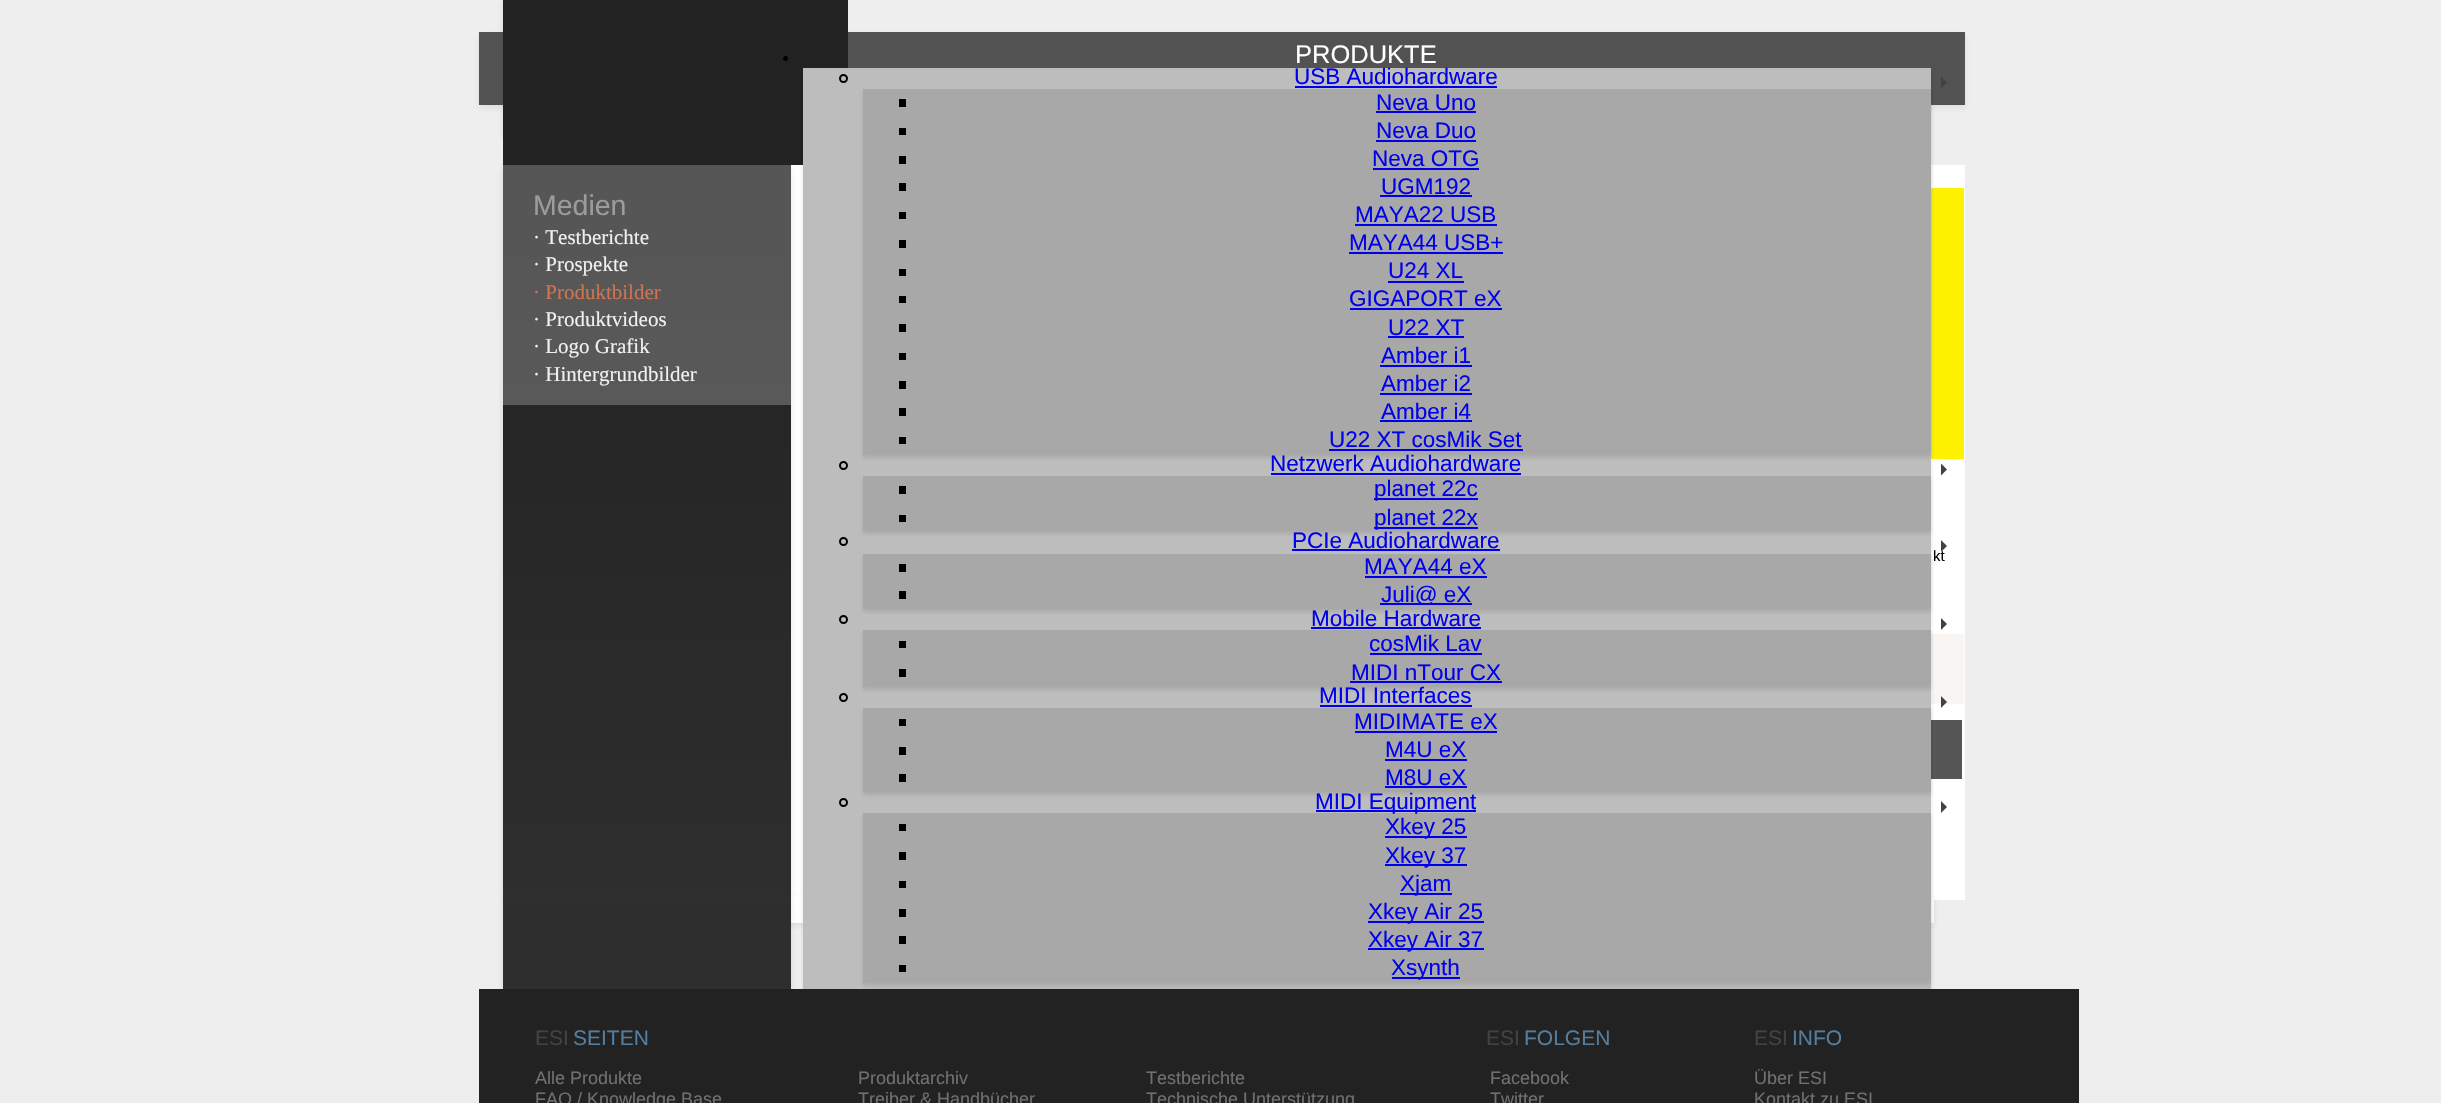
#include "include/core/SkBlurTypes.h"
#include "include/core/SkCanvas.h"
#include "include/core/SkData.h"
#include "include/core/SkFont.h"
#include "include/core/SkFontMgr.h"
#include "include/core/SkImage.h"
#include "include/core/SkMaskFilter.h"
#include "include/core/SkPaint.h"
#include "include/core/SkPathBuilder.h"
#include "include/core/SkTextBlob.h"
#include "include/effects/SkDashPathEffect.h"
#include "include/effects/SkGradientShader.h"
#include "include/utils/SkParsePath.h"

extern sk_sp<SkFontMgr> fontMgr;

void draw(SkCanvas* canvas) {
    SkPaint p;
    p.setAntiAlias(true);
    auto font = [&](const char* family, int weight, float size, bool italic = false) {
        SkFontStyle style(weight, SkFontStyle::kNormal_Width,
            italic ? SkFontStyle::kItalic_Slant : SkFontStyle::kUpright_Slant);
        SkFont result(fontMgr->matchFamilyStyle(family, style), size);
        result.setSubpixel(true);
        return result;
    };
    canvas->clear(0xFFEEEEEE);
    p.setColor(0xFF525252);
    canvas->drawRect(SkRect::MakeLTRB(479, 32, 503, 105), p);
    p.setColor(0x1F1E1E1E);
    p.setMaskFilter(SkMaskFilter::MakeBlur(kNormal_SkBlurStyle, 3));
    canvas->drawRect(SkRect::MakeLTRB(503, 0, 791, 138), p);
    p.setMaskFilter(nullptr);
    canvas->save();
    canvas->clipPath(SkPathBuilder(SkPathFillType::kEvenOdd).moveTo(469, 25).lineTo(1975, 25).lineTo(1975, 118).lineTo(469, 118).close().moveTo(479, 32).lineTo(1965, 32).lineTo(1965, 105).lineTo(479, 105).close().detach(), true);
    p.setColor(0x141E1E1E);
    p.setMaskFilter(SkMaskFilter::MakeBlur(kNormal_SkBlurStyle, 3));
    canvas->drawRect(SkRect::MakeLTRB(479, 35, 1965, 108), p);
    p.setMaskFilter(nullptr);
    canvas->restore();
    p.setColor(0xFF222222);
    canvas->drawRect(SkRect::MakeLTRB(503, 0, 848, 165), p);
    p.setColor(0xFF000000);
    canvas->drawCircle(785.5f, 58.5f, 2.5f, p);
    p.setColor(0xFF525252);
    canvas->drawRect(SkRect::MakeLTRB(848, 32, 1965, 105), p);
    auto font1 = font("Liberation Sans", 400, 25.5f);
    p.setColor(0xFFFFFFFF);
    canvas->drawString("PRODUKTE", 1295, 63, font1, p);
    {
        const struct { float l, t, r, b; SkColor color; } items[] = {
            {791, 165, 1965, 900, 0xFFFFFFFF},
            {1931, 188, 1964, 459, 0xFFFFF200},
            {1931, 634, 1964, 704, 0xFFF8F5F2},
            {1931, 720, 1962, 779, 0xFF555555},
        };
        for (auto [l, t, r, b, color] : items) {
            p.setColor(color);
            canvas->drawRect(SkRect::MakeLTRB(l, t, r, b), p);
        }
    }
    canvas->save();
    canvas->clipPath(SkPathBuilder(SkPathFillType::kEvenOdd).moveTo(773, 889).lineTo(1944, 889).lineTo(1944, 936).lineTo(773, 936).close().moveTo(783, 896).lineTo(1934, 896).lineTo(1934, 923).lineTo(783, 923).close().detach(), true);
    p.setColor(0x141E1E1E);
    p.setMaskFilter(SkMaskFilter::MakeBlur(kNormal_SkBlurStyle, 3));
    canvas->drawRect(SkRect::MakeLTRB(783, 899, 1934, 926), p);
    p.setMaskFilter(nullptr);
    canvas->restore();
    p.setColor(0xFFFFFFFF);
    canvas->drawRect(SkRect::MakeLTRB(791, 900, 1934, 923), p);
    p.setColor(0x1F1E1E1E);
    p.setMaskFilter(SkMaskFilter::MakeBlur(kNormal_SkBlurStyle, 2));
    canvas->drawRect(SkRect::MakeLTRB(803, 71, 1931, 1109), p);
    p.setMaskFilter(nullptr);
    p.setColor(0xFFBDBDBD);
    canvas->drawRect(SkRect::MakeLTRB(803, 68, 1931, 989), p);
    p.setStyle(SkPaint::kStroke_Style);
    p.setStrokeWidth(2);
    p.setColor(0xFF000000);
    canvas->drawCircle(843.5f, 78.5f, 3.5f, p);
    auto font2 = font("Liberation Sans", 400, 22.5f);
    p.setStyle(SkPaint::kFill_Style);
    p.setColor(0xFF0000EE);
    canvas->drawString("USB Audiohardware", 1294, 84, font2, p);
    p.setColor(0x1F1E1E1E);
    p.setMaskFilter(SkMaskFilter::MakeBlur(kNormal_SkBlurStyle, 2));
    canvas->drawRect(SkRect::MakeLTRB(863, 92, 1931, 458), p);
    p.setMaskFilter(nullptr);
    p.setColor(0xFF0000EE);
    canvas->drawRect(SkRect::MakeLTRB(1295, 86, 1497, 88), p);
    p.setColor(0xFF424242);
    canvas->drawPath(SkPathBuilder().moveTo(1941, 88.5f).lineTo(1941, 76.5f).lineTo(1947, 82.5f).close().detach(), p);
    p.setColor(0xFFA8A8A8);
    canvas->drawRect(SkRect::MakeLTRB(863, 89, 1931, 455), p);
    p.setColor(0xFF000000);
    canvas->drawRect(SkRect::MakeLTRB(899, 99, 906, 107), p);
    p.setColor(0xFF0000EE);
    canvas->drawString("Neva Uno", 1376, 110, font2, p);
    canvas->drawRect(SkRect::MakeLTRB(1376, 111, 1476, 113), p);
    p.setColor(0xFF000000);
    canvas->drawRect(SkRect::MakeLTRB(899, 128, 906, 135), p);
    p.setColor(0xFF0000EE);
    canvas->drawString("Neva Duo", 1376, 138, font2, p);
    canvas->drawRect(SkRect::MakeLTRB(1376, 140, 1476, 142), p);
    p.setColor(0xFF000000);
    canvas->drawRect(SkRect::MakeLTRB(899, 156, 906, 164), p);
    p.setColor(0xFF0000EE);
    canvas->drawString("Neva OTG", 1372, 166, font2, p);
    canvas->drawRect(SkRect::MakeLTRB(1373, 168, 1479, 170), p);
    p.setColor(0xFF000000);
    canvas->drawRect(SkRect::MakeLTRB(899, 183, 906, 191), p);
    p.setColor(0xFF0000EE);
    canvas->drawString("UGM192", 1381, 194, font2, p);
    canvas->drawRect(SkRect::MakeLTRB(1380, 195, 1472, 197), p);
    p.setColor(0xFF000000);
    canvas->drawRect(SkRect::MakeLTRB(899, 212, 906, 219), p);
    p.setColor(0xFF0000EE);
    canvas->drawString("MAYA22 USB", 1355, 222, font2, p);
    canvas->drawRect(SkRect::MakeLTRB(1355, 224, 1497, 226), p);
    p.setColor(0xFF000000);
    canvas->drawRect(SkRect::MakeLTRB(899, 240, 906, 248), p);
    p.setColor(0xFF0000EE);
    canvas->drawString("MAYA44 USB+", 1349, 250, font2, p);
    canvas->drawRect(SkRect::MakeLTRB(1349, 252, 1503, 254), p);
    p.setColor(0xFF000000);
    canvas->drawRect(SkRect::MakeLTRB(899, 269, 906, 276), p);
    p.setColor(0xFF0000EE);
    canvas->drawString("U24 XL", 1388, 278, font2, p);
    canvas->drawRect(SkRect::MakeLTRB(1388, 281, 1464, 283), p);
    p.setColor(0xFF000000);
    canvas->drawRect(SkRect::MakeLTRB(899, 296, 906, 303), p);
    p.setColor(0xFF0000EE);
    canvas->drawString("GIGAPORT eX", 1349, 306, font2, p);
    canvas->drawRect(SkRect::MakeLTRB(1350, 308, 1502, 310), p);
    p.setColor(0xFF000000);
    canvas->drawRect(SkRect::MakeLTRB(899, 324, 906, 332), p);
    p.setColor(0xFF0000EE);
    canvas->drawString("U22 XT", 1388, 335, font2, p);
    canvas->drawRect(SkRect::MakeLTRB(1388, 336, 1464, 338), p);
    p.setColor(0xFF000000);
    canvas->drawRect(SkRect::MakeLTRB(899, 353, 906, 360), p);
    p.setColor(0xFF0000EE);
    canvas->drawString("Amber i1", 1381, 363, font2, p);
    canvas->drawRect(SkRect::MakeLTRB(1380, 365, 1472, 367), p);
    p.setColor(0xFF000000);
    canvas->drawRect(SkRect::MakeLTRB(899, 381, 906, 389), p);
    p.setColor(0xFF0000EE);
    canvas->drawString("Amber i2", 1381, 391, font2, p);
    canvas->drawRect(SkRect::MakeLTRB(1380, 393, 1472, 395), p);
    p.setColor(0xFF000000);
    canvas->drawRect(SkRect::MakeLTRB(899, 408, 906, 416), p);
    p.setColor(0xFF0000EE);
    canvas->drawString("Amber i4", 1381, 419, font2, p);
    canvas->drawRect(SkRect::MakeLTRB(1380, 420, 1472, 422), p);
    p.setColor(0xFF000000);
    canvas->drawRect(SkRect::MakeLTRB(899, 437, 906, 444), p);
    p.setColor(0xFF0000EE);
    canvas->drawString("U22 XT cosMik Set", 1329, 447, font2, p);
    canvas->drawRect(SkRect::MakeLTRB(1329, 449, 1523, 451), p);
    p.setStyle(SkPaint::kStroke_Style);
    p.setColor(0xFF000000);
    canvas->drawCircle(843.5f, 465.5f, 3.5f, p);
    p.setStyle(SkPaint::kFill_Style);
    p.setColor(0xFF0000EE);
    canvas->drawString("Netzwerk Audiohardware", 1270, 471, font2, p);
    p.setColor(0x1F1E1E1E);
    p.setMaskFilter(SkMaskFilter::MakeBlur(kNormal_SkBlurStyle, 2));
    canvas->drawRect(SkRect::MakeLTRB(863, 479, 1931, 534), p);
    p.setMaskFilter(nullptr);
    p.setColor(0xFF0000EE);
    canvas->drawRect(SkRect::MakeLTRB(1271, 473, 1521, 475), p);
    p.setColor(0xFF424242);
    canvas->drawPath(SkPathBuilder().moveTo(1941, 475.5f).lineTo(1941, 463.5f).lineTo(1947, 469.5f).close().detach(), p);
    {
        const struct { float l, t, r, b; SkColor color; } items[] = {
            {863, 476, 1931, 531, 0xFFA8A8A8},
            {899, 486, 906, 494, 0xFF000000},
            {1374, 498, 1478, 500, 0xFF0000EE},
        };
        for (auto [l, t, r, b, color] : items) {
            p.setColor(color);
            canvas->drawRect(SkRect::MakeLTRB(l, t, r, b), p);
        }
    }
    canvas->drawString("planet 22c", 1374, 496, font2, p);
    p.setColor(0xFF000000);
    canvas->drawRect(SkRect::MakeLTRB(899, 515, 906, 522), p);
    p.setColor(0xFF0000EE);
    canvas->drawRect(SkRect::MakeLTRB(1374, 527, 1478, 529), p);
    canvas->drawString("planet 22x", 1374, 525, font2, p);
    p.setStyle(SkPaint::kStroke_Style);
    p.setColor(0xFF000000);
    canvas->drawCircle(843.5f, 541.5f, 3.5f, p);
    p.setStyle(SkPaint::kFill_Style);
    p.setColor(0xFF0000EE);
    canvas->drawString("PCIe Audiohardware", 1292, 548, font2, p);
    p.setColor(0x1F1E1E1E);
    p.setMaskFilter(SkMaskFilter::MakeBlur(kNormal_SkBlurStyle, 2));
    canvas->drawRect(SkRect::MakeLTRB(863, 557, 1931, 612), p);
    p.setMaskFilter(nullptr);
    p.setColor(0xFF0000EE);
    canvas->drawRect(SkRect::MakeLTRB(1292, 549, 1500, 551), p);
    auto font3 = font("Liberation Sans", 400, 15);
    p.setColor(0xFF000000);
    canvas->drawString("kt", 1933, 561, font3, p);
    p.setColor(0xFF424242);
    canvas->drawPath(SkPathBuilder().moveTo(1941, 552).lineTo(1941, 540).lineTo(1947, 546).close().detach(), p);
    p.setColor(0xFFA8A8A8);
    canvas->drawRect(SkRect::MakeLTRB(863, 554, 1931, 609), p);
    p.setColor(0xFF000000);
    canvas->drawRect(SkRect::MakeLTRB(899, 564, 906, 572), p);
    p.setColor(0xFF0000EE);
    canvas->drawString("MAYA44 eX", 1364, 574, font2, p);
    {
        const struct { float l, t, r, b; SkColor color; } items[] = {
            {1365, 576, 1487, 578, 0xFF0000EE},
            {899, 591, 906, 599, 0xFF000000},
            {1380, 603, 1472, 605, 0xFF0000EE},
        };
        for (auto [l, t, r, b, color] : items) {
            p.setColor(color);
            canvas->drawRect(SkRect::MakeLTRB(l, t, r, b), p);
        }
    }
    canvas->drawString("Juli@ eX", 1381, 602, font2, p);
    p.setStyle(SkPaint::kStroke_Style);
    p.setColor(0xFF000000);
    canvas->drawCircle(843.5f, 619.5f, 3.5f, p);
    p.setStyle(SkPaint::kFill_Style);
    p.setColor(0x1F1E1E1E);
    p.setMaskFilter(SkMaskFilter::MakeBlur(kNormal_SkBlurStyle, 2));
    canvas->drawRect(SkRect::MakeLTRB(863, 633, 1931, 690), p);
    p.setMaskFilter(nullptr);
    p.setColor(0xFF0000EE);
    canvas->drawString("Mobile Hardware", 1311, 626, font2, p);
    canvas->drawRect(SkRect::MakeLTRB(1311, 627, 1481, 629), p);
    p.setColor(0xFF424242);
    canvas->drawPath(SkPathBuilder().moveTo(1941, 630).lineTo(1941, 618).lineTo(1947, 624).close().detach(), p);
    p.setColor(0xFFA8A8A8);
    canvas->drawRect(SkRect::MakeLTRB(863, 630, 1931, 687), p);
    p.setColor(0xFF000000);
    canvas->drawRect(SkRect::MakeLTRB(899, 641, 906, 648), p);
    p.setColor(0xFF0000EE);
    canvas->drawString("cosMik Lav", 1369, 651, font2, p);
    canvas->drawRect(SkRect::MakeLTRB(1370, 653, 1482, 655), p);
    p.setColor(0xFF000000);
    canvas->drawRect(SkRect::MakeLTRB(899, 669, 906, 677), p);
    p.setColor(0xFF0000EE);
    canvas->drawString("MIDI nTour CX", 1351, 680, font2, p);
    canvas->drawRect(SkRect::MakeLTRB(1350, 681, 1502, 683), p);
    p.setStyle(SkPaint::kStroke_Style);
    p.setColor(0xFF000000);
    canvas->drawCircle(843.5f, 697.5f, 3.5f, p);
    p.setStyle(SkPaint::kFill_Style);
    p.setColor(0xFF0000EE);
    canvas->drawString("MIDI Interfaces", 1319, 703, font2, p);
    p.setColor(0x1F1E1E1E);
    p.setMaskFilter(SkMaskFilter::MakeBlur(kNormal_SkBlurStyle, 2));
    canvas->drawRect(SkRect::MakeLTRB(863, 711, 1931, 795), p);
    p.setMaskFilter(nullptr);
    p.setColor(0xFF0000EE);
    canvas->drawRect(SkRect::MakeLTRB(1320, 705, 1472, 707), p);
    p.setColor(0xFF424242);
    canvas->drawPath(SkPathBuilder().moveTo(1941, 708).lineTo(1941, 696).lineTo(1947, 702).close().detach(), p);
    p.setColor(0xFFA8A8A8);
    canvas->drawRect(SkRect::MakeLTRB(863, 708, 1931, 792), p);
    p.setColor(0xFF000000);
    canvas->drawRect(SkRect::MakeLTRB(899, 719, 906, 726), p);
    p.setColor(0xFF0000EE);
    canvas->drawString("MIDIMATE eX", 1354, 729, font2, p);
    canvas->drawRect(SkRect::MakeLTRB(1355, 731, 1497, 733), p);
    p.setColor(0xFF000000);
    canvas->drawRect(SkRect::MakeLTRB(899, 747, 906, 755), p);
    p.setColor(0xFF0000EE);
    canvas->drawString("M4U eX", 1385, 757, font2, p);
    canvas->drawRect(SkRect::MakeLTRB(1385, 759, 1467, 761), p);
    p.setColor(0xFF000000);
    canvas->drawRect(SkRect::MakeLTRB(899, 774, 906, 782), p);
    p.setColor(0xFF0000EE);
    canvas->drawString("M8U eX", 1385, 785, font2, p);
    canvas->drawRect(SkRect::MakeLTRB(1385, 786, 1467, 788), p);
    p.setStyle(SkPaint::kStroke_Style);
    p.setColor(0xFF000000);
    canvas->drawCircle(843.5f, 802.5f, 3.5f, p);
    p.setStyle(SkPaint::kFill_Style);
    p.setColor(0x1F1E1E1E);
    p.setMaskFilter(SkMaskFilter::MakeBlur(kNormal_SkBlurStyle, 2));
    canvas->drawRect(SkRect::MakeLTRB(863, 816, 1931, 986), p);
    p.setMaskFilter(nullptr);
    p.setColor(0xFF0000EE);
    canvas->drawRect(SkRect::MakeLTRB(1316, 810, 1476, 812), p);
    p.setColor(0xFFA8A8A8);
    canvas->drawRect(SkRect::MakeLTRB(863, 813, 1931, 983), p);
    p.setColor(0xFF0000EE);
    canvas->drawString("MIDI Equipment", 1315, 809, font2, p);
    p.setColor(0xFF424242);
    canvas->drawPath(SkPathBuilder().moveTo(1941, 813).lineTo(1941, 801).lineTo(1947, 807).close().detach(), p);
    p.setColor(0xFF000000);
    canvas->drawRect(SkRect::MakeLTRB(899, 824, 906, 831), p);
    p.setColor(0xFF0000EE);
    canvas->drawRect(SkRect::MakeLTRB(1385, 836, 1467, 838), p);
    canvas->drawString("Xkey 25", 1385, 834, font2, p);
    p.setColor(0xFF000000);
    canvas->drawRect(SkRect::MakeLTRB(899, 852, 906, 860), p);
    p.setColor(0xFF0000EE);
    canvas->drawRect(SkRect::MakeLTRB(1385, 864, 1467, 866), p);
    canvas->drawString("Xkey 37", 1385, 863, font2, p);
    p.setColor(0xFF000000);
    canvas->drawRect(SkRect::MakeLTRB(899, 881, 906, 888), p);
    p.setColor(0xFF0000EE);
    canvas->drawRect(SkRect::MakeLTRB(1400, 893, 1452, 895), p);
    canvas->drawString("Xjam", 1400, 891, font2, p);
    p.setColor(0xFF000000);
    canvas->drawRect(SkRect::MakeLTRB(899, 909, 906, 917), p);
    p.setColor(0xFF0000EE);
    canvas->drawRect(SkRect::MakeLTRB(1368, 921, 1484, 923), p);
    canvas->drawString("Xkey Air 25", 1368, 919, font2, p);
    p.setColor(0xFF000000);
    canvas->drawRect(SkRect::MakeLTRB(899, 936, 906, 944), p);
    p.setColor(0xFF0000EE);
    canvas->drawRect(SkRect::MakeLTRB(1368, 948, 1484, 950), p);
    canvas->drawString("Xkey Air 37", 1368, 947, font2, p);
    p.setColor(0xFF000000);
    canvas->drawRect(SkRect::MakeLTRB(899, 965, 906, 972), p);
    p.setColor(0xFF0000EE);
    canvas->drawRect(SkRect::MakeLTRB(1392, 977, 1460, 979), p);
    canvas->drawString("Xsynth", 1391, 975, font2, p);
    p.setColor(0x1F1E1E1E);
    p.setMaskFilter(SkMaskFilter::MakeBlur(kNormal_SkBlurStyle, 3));
    canvas->drawRect(SkRect::MakeLTRB(503, 168, 791, 903), p);
    p.setMaskFilter(nullptr);
    {
        const SkColor colors[] = {0xFF222222, 0xFF2E2E2E};
        const float stops[] = {0, 1};
        const SkPoint ends[] = {{646, 165}, {647, 918}};
        p.setShader(SkGradientShader::MakeLinear(ends, colors, stops, 2, SkTileMode::kClamp));
        p.setAlpha(255);
    }
    canvas->drawRect(SkRect::MakeLTRB(503, 165, 791, 900), p);
    p.setShader(nullptr);
    p.setColor(0x3BFFFFFF);
    canvas->drawRect(SkRect::MakeLTRB(503, 165, 791, 405), p);
    auto font4 = font("Liberation Sans", 400, 28.5f);
    p.setColor(0xFF9C9C9C);
    canvas->drawString("Medien", 533, 215, font4, p);
    auto font5 = font("Liberation Serif", 400, 21);
    p.setColor(0xFFF0F0F0);
    canvas->drawString("· Testberichte", 533, 244, font5, p);
    canvas->drawString("· Prospekte", 533, 271, font5, p);
    p.setColor(0xFFD1744F);
    canvas->drawString("· Produktbilder", 533, 299, font5, p);
    p.setColor(0xFFF0F0F0);
    {
        const struct { const char* s; float x, y; } items[] = {
            {"· Produktvideos", 533, 326},
            {"· Logo Grafik", 533, 353},
            {"· Hintergrundbilder", 533, 381},
        };
        for (auto [s, x, y] : items) {
            canvas->drawString(s, x, y, font5, p);
        }
    }
    p.setColor(0x1F1E1E1E);
    p.setMaskFilter(SkMaskFilter::MakeBlur(kNormal_SkBlurStyle, 3));
    canvas->drawRect(SkRect::MakeLTRB(503, 903, 791, 992), p);
    p.setMaskFilter(nullptr);
    p.setColor(0xFF2E2E2E);
    canvas->drawRect(SkRect::MakeLTRB(503, 900, 791, 989), p);
    p.setColor(0xFF222222);
    canvas->drawRect(SkRect::MakeLTRB(479, 989, 2079, 1103), p);
    auto font6 = font("Liberation Sans", 400, 21);
    p.setColor(0xFF424242);
    canvas->drawString("ESI", 535, 1045, font6, p);
    p.setColor(0xFF557D9D);
    canvas->drawString("SEITEN", 573, 1045, font6, p);
    p.setColor(0xFF424242);
    canvas->drawString("ESI", 1486, 1045, font6, p);
    p.setColor(0xFF557D9D);
    canvas->drawString("FOLGEN", 1524, 1045, font6, p);
    p.setColor(0xFF424242);
    canvas->drawString("ESI", 1754, 1045, font6, p);
    p.setColor(0xFF557D9D);
    canvas->drawString("INFO", 1792, 1045, font6, p);
    auto font7 = font("Liberation Sans", 400, 18);
    p.setColor(0xFF707070);
    {
        const struct { const char* s; float x, y; } items[] = {
            {"Alle Produkte", 535, 1084},
            {"Produktarchiv", 858, 1084},
            {"Testberichte", 1146, 1084},
            {"Facebook", 1490, 1084},
            {"Über ESI", 1754, 1084},
            {"FAQ / Knowledge Base", 535, 1105},
            {"Treiber & Handbücher", 858, 1105},
            {"Technische Unterstützung", 1146, 1105},
            {"Twitter", 1490, 1105},
            {"Kontakt zu ESI", 1754, 1105},
        };
        for (auto [s, x, y] : items) {
            canvas->drawString(s, x, y, font7, p);
        }
    }
}
